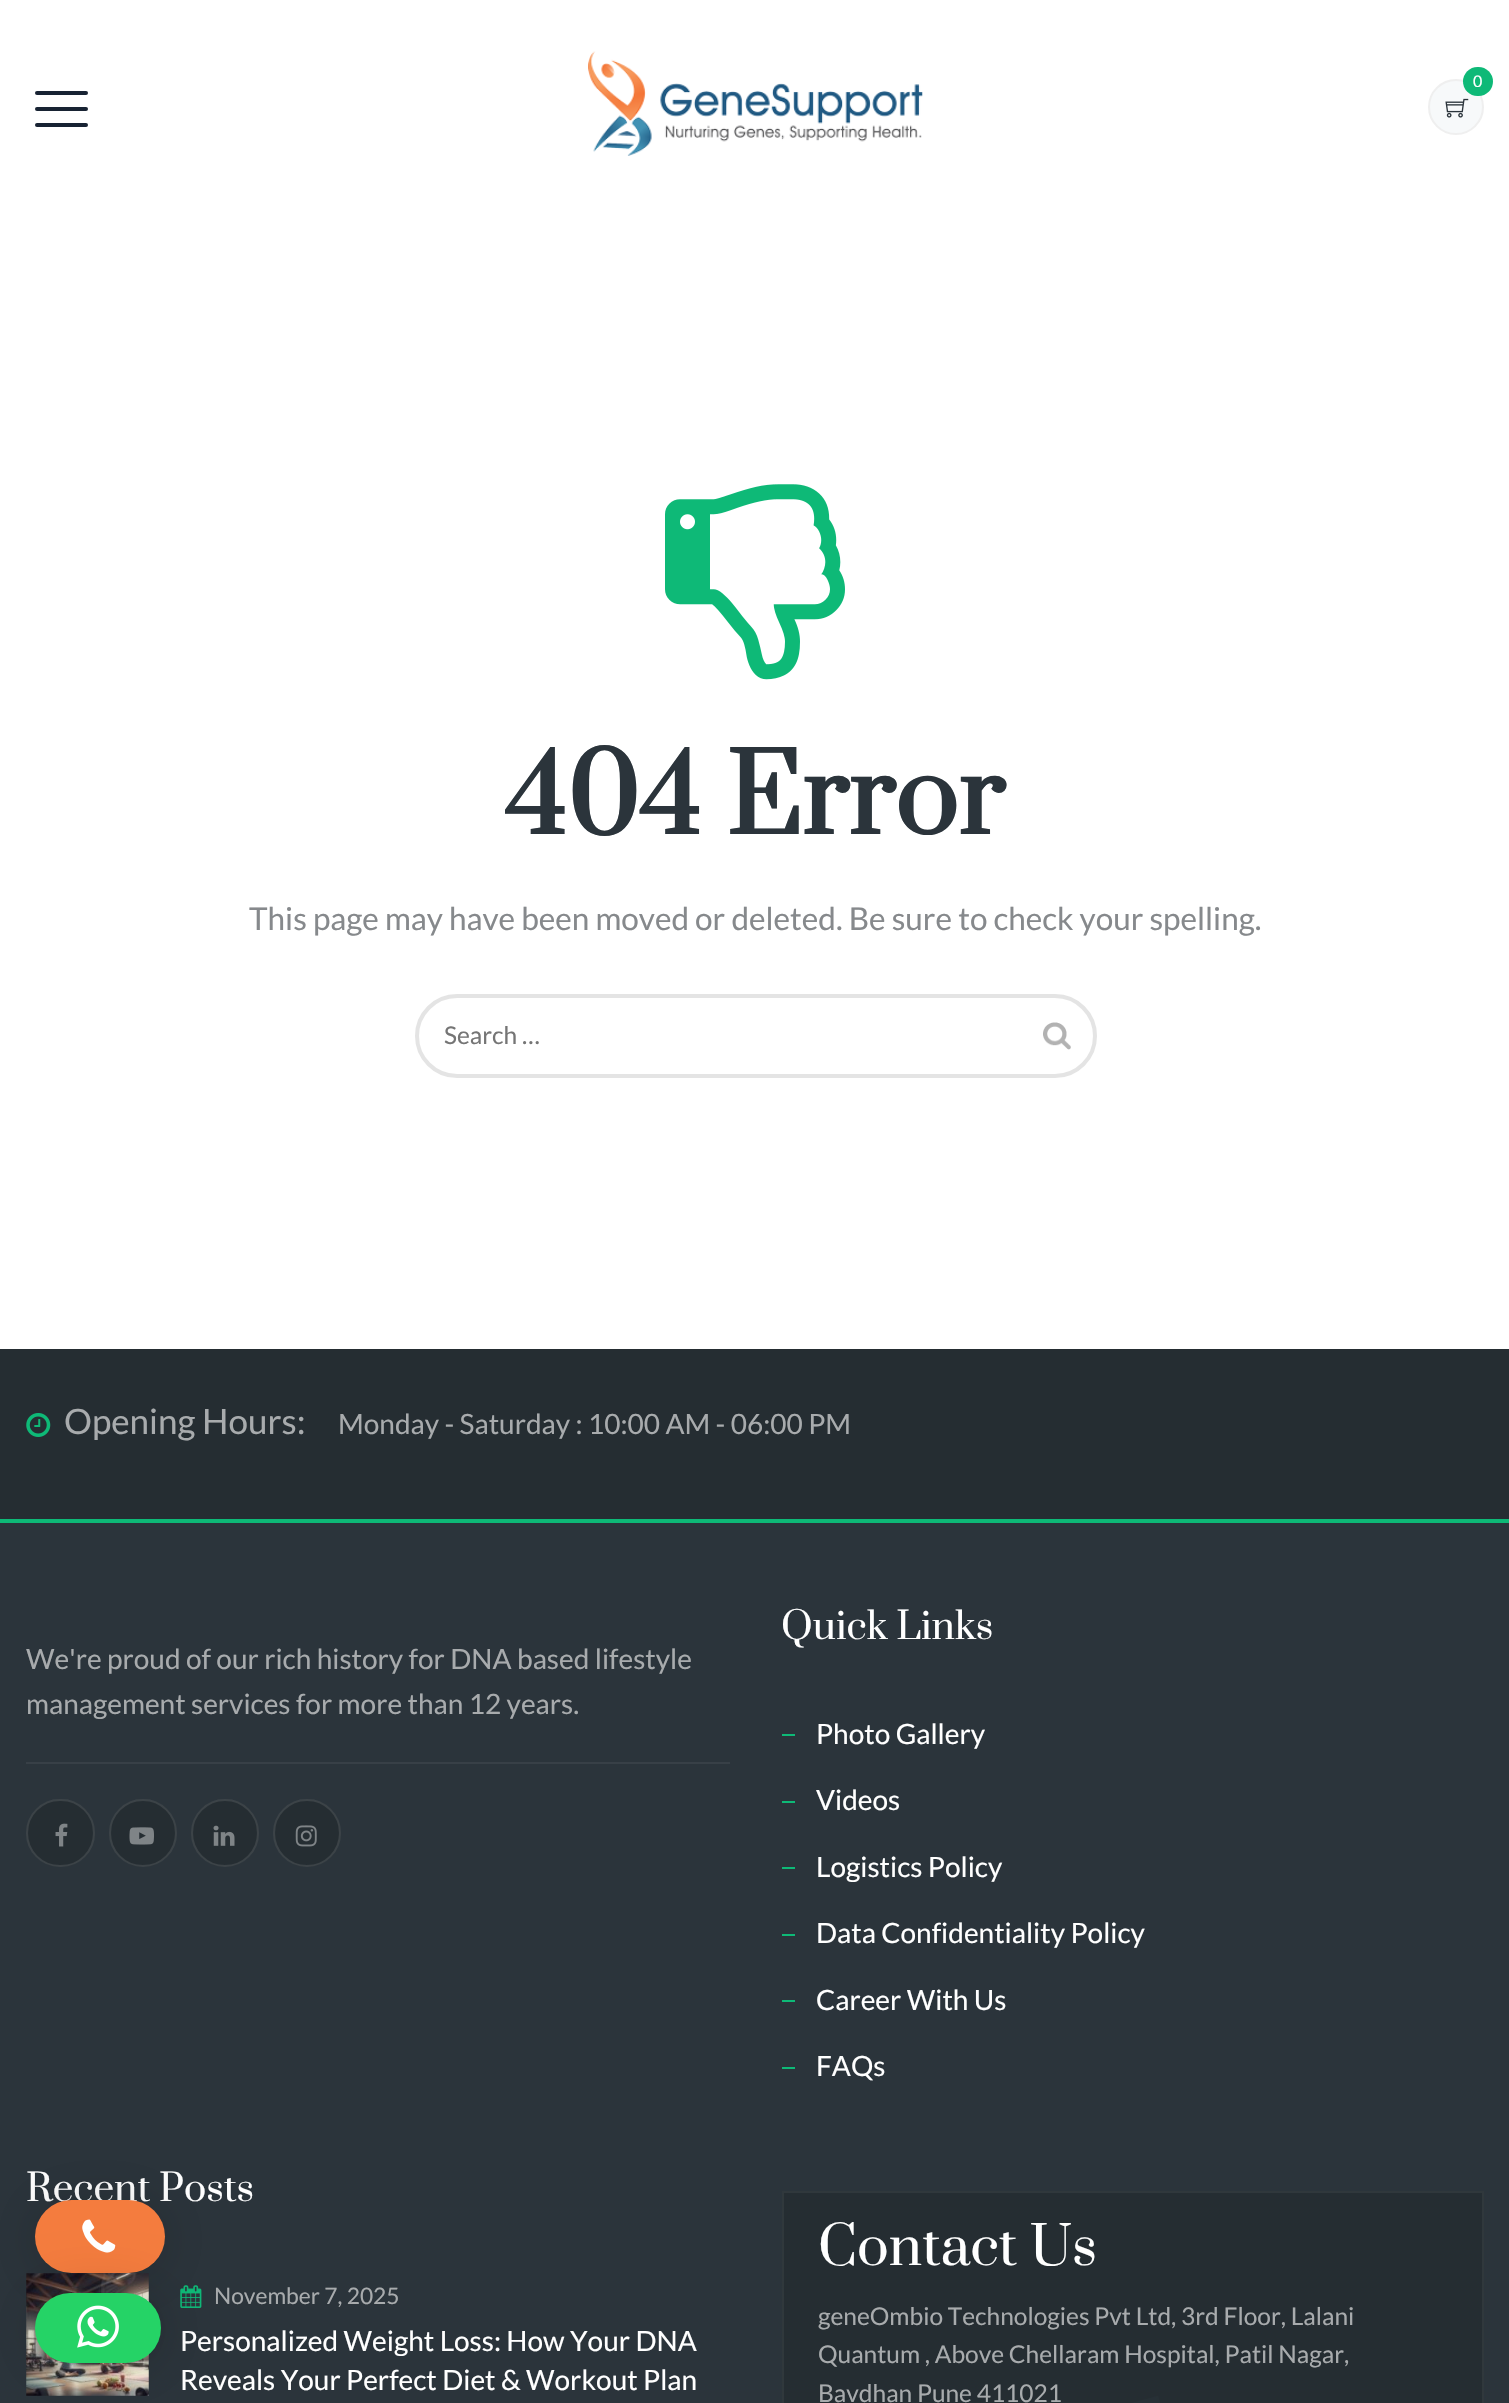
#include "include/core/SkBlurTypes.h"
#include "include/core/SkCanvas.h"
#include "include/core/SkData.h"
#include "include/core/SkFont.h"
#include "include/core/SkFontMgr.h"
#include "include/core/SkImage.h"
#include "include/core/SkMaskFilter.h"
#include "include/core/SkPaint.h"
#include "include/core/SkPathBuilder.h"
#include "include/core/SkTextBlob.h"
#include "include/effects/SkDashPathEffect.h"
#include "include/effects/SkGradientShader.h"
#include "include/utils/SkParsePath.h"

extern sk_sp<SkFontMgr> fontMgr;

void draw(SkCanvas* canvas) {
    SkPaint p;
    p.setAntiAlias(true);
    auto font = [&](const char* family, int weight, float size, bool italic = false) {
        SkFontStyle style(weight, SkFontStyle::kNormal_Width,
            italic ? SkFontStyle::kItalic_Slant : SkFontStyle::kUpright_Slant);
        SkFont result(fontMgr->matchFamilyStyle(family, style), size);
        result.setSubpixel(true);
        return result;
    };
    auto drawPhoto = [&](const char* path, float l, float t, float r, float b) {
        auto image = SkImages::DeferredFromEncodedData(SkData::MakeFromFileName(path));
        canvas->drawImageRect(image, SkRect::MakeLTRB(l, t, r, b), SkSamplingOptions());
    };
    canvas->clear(0xFFFFFFFF);
    drawPhoto("media/1.png", 588, 51, 923, 156);
    p.setColor(0xFFF7F9FA);
    canvas->drawCircle(1456, 107, 27, p);
    p.setStyle(SkPaint::kStroke_Style);
    p.setStrokeWidth(2);
    p.setColor(0xFFEFEFEF);
    canvas->drawCircle(1456, 107, 27, p);
    p.setStyle(SkPaint::kFill_Style);
    p.setColor(0xFF0EB977);
    canvas->drawRoundRect(SkRect::MakeLTRB(1463, 67, 1493, 96), 14.5f, 14.5f, p);
    auto font1 = font("Lato", 400, 16);
    p.setColor(0xFFFFFFFF);
    canvas->drawString("0", 1473, 87, font1, p);
    drawPhoto("media/2.png", 1445, 98, 1469, 118);
    p.setColor(0xFF182333);
    canvas->drawRoundRect(SkRect::MakeLTRB(35, 107, 88, 111), 2, 2, p);
    canvas->drawRoundRect(SkRect::MakeLTRB(35, 91, 88, 95), 2, 2, p);
    canvas->drawRoundRect(SkRect::MakeLTRB(35, 123, 88, 127), 2, 2, p);
    drawPhoto("media/3.png", 665, 484, 845, 680);
    auto font2 = font("Prata", 700, 105);
    p.setColor(0xFF2B343B);
    canvas->drawString("404 Error", 505, 834, font2, p);
    auto font3 = font("Lato", 400, 31.5f);
    p.setColor(0xFF86898C);
    canvas->drawString("This page may have been moved or deleted. Be sure to check your spelling.", 249, 930, font3, p);
    p.setStyle(SkPaint::kStroke_Style);
    p.setStrokeWidth(4);
    p.setColor(0xFFE4E4E4);
    canvas->drawRoundRect(SkRect::MakeLTRB(417, 996, 1095, 1076), 40, 40, p);
    auto font4 = font("Lato", 400, 24.5f);
    p.setStyle(SkPaint::kFill_Style);
    p.setColor(0xFF757575);
    canvas->drawString("Search …", 444, 1044, font4, p);
    drawPhoto("media/4.png", 1043, 1022, 1071, 1050);
    p.setColor(0xFF252D32);
    canvas->drawRect(SkRect::MakeLTRB(0, 1349, 1509, 1519), p);
    drawPhoto("media/5.png", 26, 1413, 51, 1437);
    auto font5 = font("Lato", 400, 35);
    p.setColor(0xFFA8ABAD);
    canvas->drawString("Opening Hours:", 64, 1434, font5, p);
    auto font6 = font("Lato", 400, 28);
    canvas->drawString("Monday - Saturday : 10:00 AM - 06:00 PM", 338, 1434, font6, p);
    p.setColor(0xFF0EB977);
    canvas->drawRect(SkRect::MakeLTRB(0, 1519, 1509, 1523), p);
    p.setColor(0xFF2B343B);
    canvas->drawRect(SkRect::MakeLTRB(0, 1523, 1509, 2403), p);
    p.setColor(0xFFA8ABAD);
    canvas->drawString("We're proud of our rich history for DNA based lifestyle", 26, 1669, font6, p);
    canvas->drawString("management services for more than 12 years.", 26, 1714, font6, p);
    p.setColor(0xFF384047);
    canvas->drawRect(SkRect::MakeLTRB(26, 1762, 730, 1764), p);
    p.setColor(0xFF252D32);
    canvas->drawRoundRect(SkRect::MakeLTRB(26, 1799, 95, 1867), 34, 34, p);
    p.setStyle(SkPaint::kStroke_Style);
    p.setStrokeWidth(2);
    p.setColor(0x1AFFFFFF);
    canvas->drawRoundRect(SkRect::MakeLTRB(27, 1800, 94, 1866), 33, 33, p);
    drawPhoto("media/6.png", 55, 1823, 68, 1847);
    p.setStyle(SkPaint::kFill_Style);
    p.setColor(0xFF252D32);
    canvas->drawCircle(143, 1833, 34, p);
    p.setStyle(SkPaint::kStroke_Style);
    p.setColor(0x1AFFFFFF);
    canvas->drawCircle(143, 1833, 33, p);
    drawPhoto("media/7.png", 129, 1827, 154, 1845);
    p.setStyle(SkPaint::kFill_Style);
    p.setColor(0xFF252D32);
    canvas->drawCircle(225, 1833, 34, p);
    p.setStyle(SkPaint::kStroke_Style);
    p.setColor(0x1AFFFFFF);
    canvas->drawCircle(225, 1833, 33, p);
    drawPhoto("media/8.png", 213, 1825, 235, 1846);
    p.setStyle(SkPaint::kFill_Style);
    p.setColor(0xFF252D32);
    canvas->drawCircle(307, 1833, 34, p);
    p.setStyle(SkPaint::kStroke_Style);
    p.setColor(0x1AFFFFFF);
    canvas->drawCircle(307, 1833, 33, p);
    drawPhoto("media/9.png", 295, 1825, 317, 1847);
    auto font7 = font("Prata", 400, 36.75f);
    p.setStyle(SkPaint::kFill_Style);
    p.setColor(0xFFFFFFFF);
    canvas->drawString("Quick Links", 781, 1639, font7, p);
    p.setColor(0xFF0EB977);
    canvas->drawRect(SkRect::MakeLTRB(782, 1734, 795, 1736), p);
    p.setColor(0xFFFFFFFF);
    canvas->drawString("Photo Gallery", 816, 1744, font6, p);
    p.setColor(0xFF0EB977);
    canvas->drawRect(SkRect::MakeLTRB(782, 1801, 795, 1803), p);
    p.setColor(0xFFFFFFFF);
    canvas->drawString("Videos", 816, 1810, font6, p);
    p.setColor(0xFF0EB977);
    canvas->drawRect(SkRect::MakeLTRB(782, 1867, 795, 1869), p);
    p.setColor(0xFFFFFFFF);
    canvas->drawString("Logistics Policy", 816, 1877, font6, p);
    p.setColor(0xFF0EB977);
    canvas->drawRect(SkRect::MakeLTRB(782, 1934, 795, 1936), p);
    p.setColor(0xFFFFFFFF);
    canvas->drawString("Data Confidentiality Policy", 816, 1943, font6, p);
    p.setColor(0xFF0EB977);
    canvas->drawRect(SkRect::MakeLTRB(782, 2000, 795, 2002), p);
    p.setColor(0xFFFFFFFF);
    canvas->drawString("Career With Us", 816, 2010, font6, p);
    p.setColor(0xFF0EB977);
    canvas->drawRect(SkRect::MakeLTRB(782, 2067, 795, 2069), p);
    p.setColor(0xFFFFFFFF);
    canvas->drawString("FAQs", 816, 2076, font6, p);
    canvas->drawString("Recent Posts", 26, 2201, font7, p);
    drawPhoto("media/10.png", 26, 2273, 149, 2396);
    drawPhoto("media/11.png", 180, 2285, 202, 2308);
    auto font8 = font("Lato", 400, 22.75f);
    p.setColor(0xFFA8ABAD);
    canvas->drawString("November 7, 2025", 214, 2304, font8, p);
    p.setColor(0xFFFFFFFF);
    canvas->drawString("Personalized Weight Loss: How Your DNA", 180, 2351, font6, p);
    canvas->drawString("Reveals Your Perfect Diet & Workout Plan", 180, 2390, font6, p);
    p.setColor(0xFF252D32);
    canvas->drawRect(SkRect::MakeLTRB(783, 2192, 1483, 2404), p);
    p.setStyle(SkPaint::kStroke_Style);
    p.setColor(0xFF30383C);
    canvas->drawRect(SkRect::MakeLTRB(783, 2192, 1483, 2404), p);
    auto font9 = font("Prata", 400, 52.5f);
    p.setStyle(SkPaint::kFill_Style);
    p.setColor(0xFFFFFFFF);
    canvas->drawString("Contact Us", 818, 2265, font9, p);
    p.setColor(0xFFA8ABAD);
    {
        const struct { const char* s; float x, y; } items[] = {
            {"geneOmbio Technologies Pvt Ltd, 3rd Floor, Lalani", 818, 2325},
            {"Quantum , Above Chellaram Hospital, Patil Nagar,", 818, 2363},
            {"Bavdhan Pune 411021", 818, 2402},
        };
        for (auto [s, x, y] : items) {
            canvas->drawString(s, x, y, font4, p);
        }
    }
    p.setColor(0xFF273036);
    canvas->drawPath(SkPathBuilder().moveTo(862, 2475).lineTo(923, 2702).lineTo(1219, 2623).lineTo(1158, 2396).close().moveTo(1047, 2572).lineTo(895, 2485).lineTo(1135, 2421).close().moveTo(993, 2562).lineTo(932, 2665).lineTo(888, 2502).close().moveTo(1009, 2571).lineTo(1053, 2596).lineTo(1079, 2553).lineTo(1184, 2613).lineTo(947, 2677).close().moveTo(1088, 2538).lineTo(1149, 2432).lineTo(1193, 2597).close().detach(), p);
    p.setColor(0x29000000);
    p.setMaskFilter(SkMaskFilter::MakeBlur(kNormal_SkBlurStyle, 28));
    canvas->drawRoundRect(SkRect::MakeLTRB(35, 2203, 165, 2277), 37, 37, p);
    p.setMaskFilter(nullptr);
    p.setColor(0xFFF47C3E);
    canvas->drawRoundRect(SkRect::MakeLTRB(35, 2200, 165, 2273), 36.5f, 36.5f, p);
    drawPhoto("media/12.png", 82, 2219, 116, 2253);
    p.setColor(0x29000000);
    p.setMaskFilter(SkMaskFilter::MakeBlur(kNormal_SkBlurStyle, 28));
    canvas->drawRoundRect(SkRect::MakeLTRB(35, 2296, 161, 2366), 35, 35, p);
    p.setMaskFilter(nullptr);
    p.setColor(0x0F000000);
    p.setMaskFilter(SkMaskFilter::MakeBlur(kNormal_SkBlurStyle, 5));
    canvas->drawRoundRect(SkRect::MakeLTRB(35, 2294, 161, 2364), 35, 35, p);
    p.setMaskFilter(nullptr);
    p.setColor(0xFF25D366);
    canvas->drawRoundRect(SkRect::MakeLTRB(35, 2293, 161, 2363), 35, 35, p);
    drawPhoto("media/13.png", 77, 2305, 119, 2348);
}
